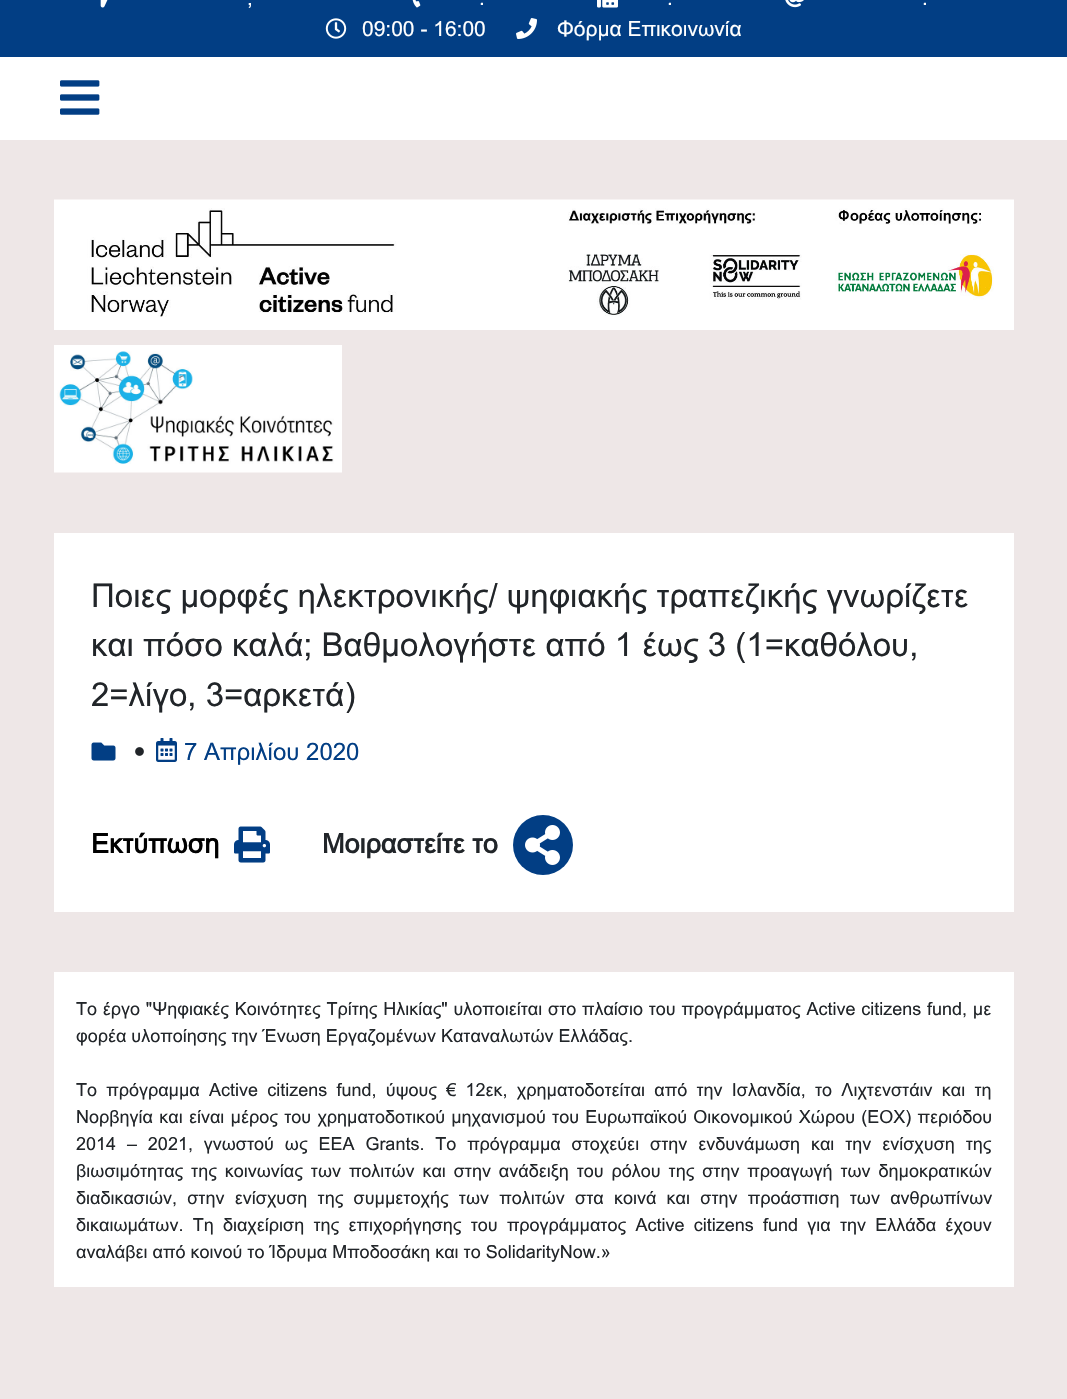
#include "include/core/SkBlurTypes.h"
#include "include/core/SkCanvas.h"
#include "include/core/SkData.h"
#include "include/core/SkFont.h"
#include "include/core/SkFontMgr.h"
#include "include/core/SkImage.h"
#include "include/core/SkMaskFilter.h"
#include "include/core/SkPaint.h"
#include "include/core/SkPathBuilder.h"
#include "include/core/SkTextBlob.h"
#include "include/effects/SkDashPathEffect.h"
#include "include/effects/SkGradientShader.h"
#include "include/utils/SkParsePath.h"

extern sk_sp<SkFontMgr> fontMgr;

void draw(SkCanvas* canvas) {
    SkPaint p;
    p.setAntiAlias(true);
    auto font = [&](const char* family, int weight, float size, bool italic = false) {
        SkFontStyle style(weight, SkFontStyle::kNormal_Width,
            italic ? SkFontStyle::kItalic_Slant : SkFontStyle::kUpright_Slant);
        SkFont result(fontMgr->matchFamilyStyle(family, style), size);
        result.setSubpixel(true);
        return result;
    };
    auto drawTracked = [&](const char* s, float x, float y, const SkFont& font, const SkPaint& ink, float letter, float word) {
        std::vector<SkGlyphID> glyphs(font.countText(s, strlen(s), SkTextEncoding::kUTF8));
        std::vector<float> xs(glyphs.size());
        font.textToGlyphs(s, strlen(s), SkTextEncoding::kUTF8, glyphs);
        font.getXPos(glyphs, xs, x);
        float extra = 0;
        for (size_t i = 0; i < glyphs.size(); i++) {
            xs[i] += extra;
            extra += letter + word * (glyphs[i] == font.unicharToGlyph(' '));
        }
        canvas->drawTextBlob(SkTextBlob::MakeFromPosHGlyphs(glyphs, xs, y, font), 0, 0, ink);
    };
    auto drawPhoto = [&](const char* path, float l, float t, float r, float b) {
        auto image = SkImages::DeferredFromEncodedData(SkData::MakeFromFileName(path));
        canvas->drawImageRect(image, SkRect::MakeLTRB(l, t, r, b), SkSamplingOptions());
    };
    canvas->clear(0xFFEEE7E7);
    p.setColor(0xFF023E84);
    canvas->drawRect(SkRect::MakeLTRB(0, 0, 1067, 57), p);
    drawPhoto("media/1.png", 100, 0, 108, 8);
    auto font1 = font("Arial", 400, 21);
    p.setColor(0xFFFFFFFF);
    canvas->drawString(",", 247, 5, font1, p);
    drawPhoto("media/2.png", 412, 0, 421, 8);
    canvas->drawString(".", 479, 5, font1, p);
    drawPhoto("media/3.png", 597, 0, 618, 8);
    canvas->drawString(".", 667, 5, font1, p);
    drawPhoto("media/4.png", 785, 0, 804, 8);
    canvas->drawString(".", 922, 5, font1, p);
    drawPhoto("media/5.png", 325, 18, 347, 39);
    canvas->drawString("09:00 - 16:00", 362, 36, font1, p);
    drawPhoto("media/6.png", 516, 18, 537, 39);
    canvas->drawString("Φόρμα Επικοινωνία", 557, 36, font1, p);
    canvas->drawRect(SkRect::MakeLTRB(0, 57, 1067, 140), p);
    drawPhoto("media/7.png", 60, 80, 100, 115);
    drawPhoto("media/8.png", 54, 199, 1014, 330);
    drawPhoto("media/9.png", 54, 345, 342, 473);
    canvas->drawRect(SkRect::MakeLTRB(54, 533, 1014, 912), p);
    auto font2 = font("Arial", 400, 33);
    p.setColor(0xFF212529);
    {
        const struct { const char* s; float x, y; } items[] = {
            {"Ποιες μορφές ηλεκτρονικής/ ψηφιακής τραπεζικής γνωρίζετε", 91, 607},
            {"και πόσο καλά; Βαθμολογήστε από 1 έως 3 (1=καθόλου,", 91, 656},
            {"2=λίγο, 3=αρκετά)", 91, 706},
        };
        for (auto [s, x, y] : items) {
            canvas->drawString(s, x, y, font2, p);
        }
    }
    drawPhoto("media/10.png", 91, 742, 116, 761);
    drawPhoto("media/11.png", 135, 747, 144, 756);
    drawPhoto("media/12.png", 156, 738, 177, 762);
    auto font3 = font("Arial", 400, 24);
    p.setColor(0xFF023E84);
    canvas->drawString("7 Απριλίου 2020", 184, 760, font3, p);
    auto font4 = font("Arial", 700, 27);
    p.setColor(0xFF000000);
    canvas->drawString("Εκτύπωση", 91, 853, font4, p);
    drawPhoto("media/13.png", 234, 826, 270, 863);
    p.setColor(0xFF212529);
    canvas->drawString("Μοιραστείτε το", 322, 853, font4, p);
    p.setColor(0xFF023E84);
    canvas->drawCircle(543, 845, 30, p);
    drawPhoto("media/14.png", 525, 825, 560, 865);
    p.setColor(0xFFFFFFFF);
    canvas->drawRect(SkRect::MakeLTRB(54, 972, 1014, 1287), p);
    auto font5 = font("Arial", 400, 18);
    p.setColor(0xFF212529);
    drawTracked("Το έργο \"Ψηφιακές Κοινότητες Τρίτης Ηλικίας\" υλοποιείται στο πλαίσιο του προγράμματος Active citizens fund, με", 76, 1015, font5, p, 0, 0.75f);
    canvas->drawString("φορέα υλοποίησης την Ένωση Εργαζομένων Καταναλωτών Ελλάδας.", 76, 1042, font5, p);
    drawTracked("Το πρόγραμμα Active citizens fund, ύψους € 12εκ, χρηματοδοτείται από την Ισλανδία, το Λιχτενστάιν και τη", 76, 1096, font5, p, 0, 4.25f);
    drawTracked("Νορβηγία και είναι μέρος του χρηματοδοτικού μηχανισμού του Ευρωπαϊκού Οικονομικού Χώρου (ΕΟΧ) περιόδου", 76, 1123, font5, p, 0, 1.25f);
    drawTracked("2014 – 2021, γνωστού ως EEA Grants. Το πρόγραμμα στοχεύει στην ενδυνάμωση και την ενίσχυση της", 76, 1150, font5, p, 0, 5.9f);
    drawTracked("βιωσιμότητας της κοινωνίας των πολιτών και στην ανάδειξη του ρόλου της στην προαγωγή των δημοκρατικών", 76, 1177, font5, p, 0, 2.9f);
    drawTracked("διαδικασιών, στην ενίσχυση της συμμετοχής των πολιτών στα κοινά και στην προάσπιση των ανθρωπίνων", 76, 1204, font5, p, 0, 5.25f);
    drawTracked("δικαιωμάτων. Τη διαχείριση της επιχορήγησης του προγράμματος Active citizens fund για την Ελλάδα έχουν", 76, 1231, font5, p, 0, 4.25f);
    canvas->drawString("αναλάβει από κοινού το Ίδρυμα Μποδοσάκη και το SolidarityNow.»", 76, 1258, font5, p);
}
